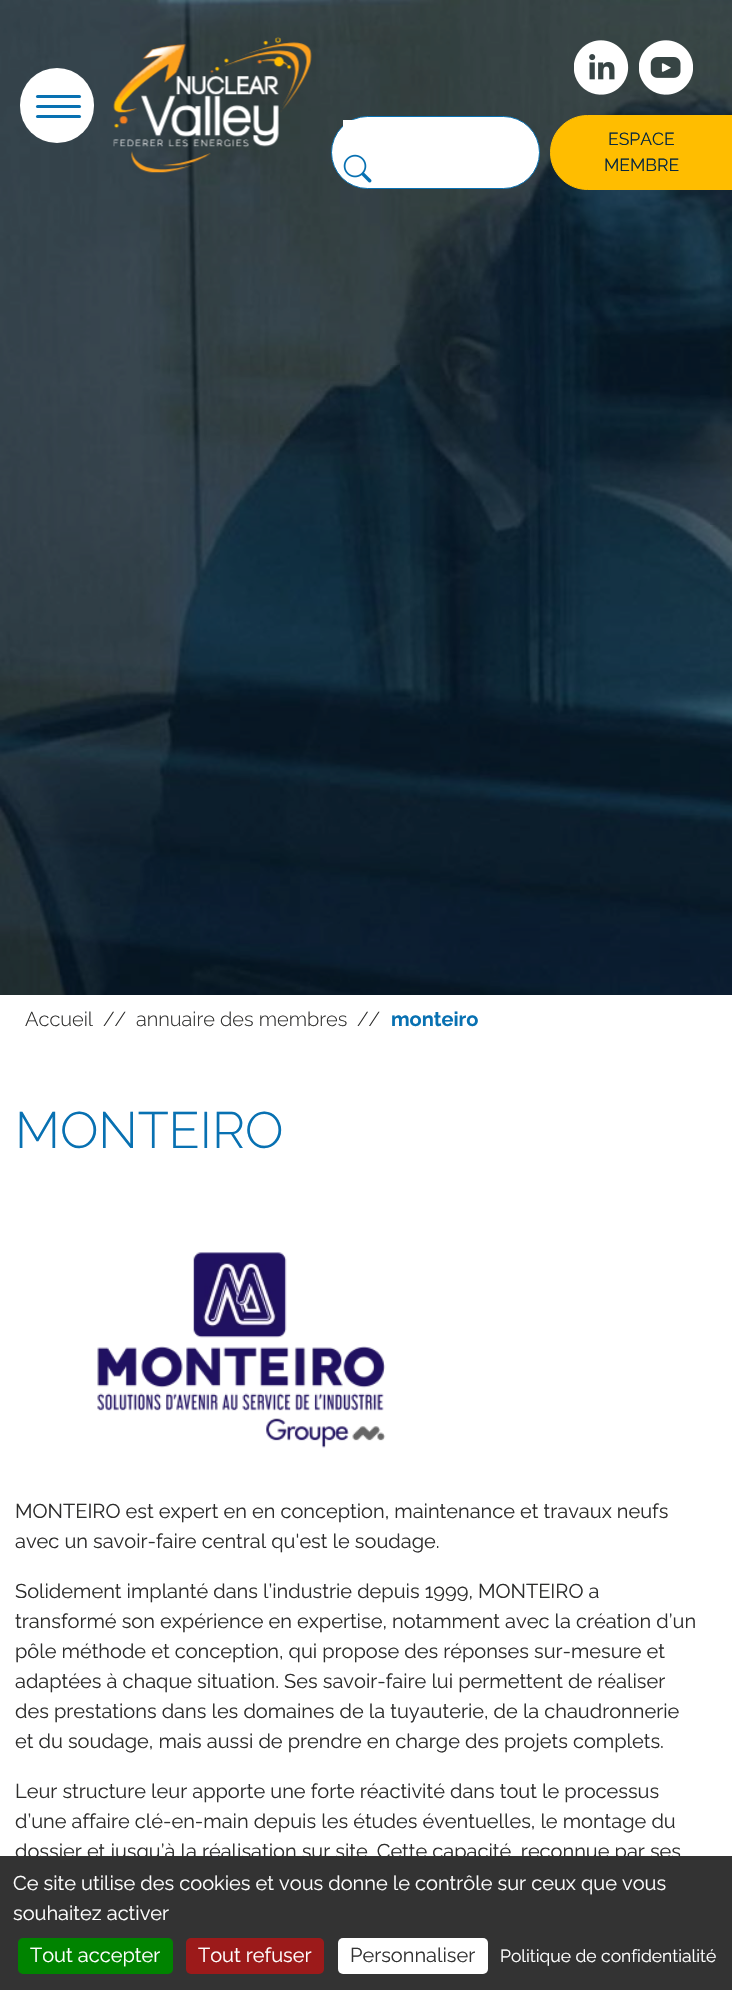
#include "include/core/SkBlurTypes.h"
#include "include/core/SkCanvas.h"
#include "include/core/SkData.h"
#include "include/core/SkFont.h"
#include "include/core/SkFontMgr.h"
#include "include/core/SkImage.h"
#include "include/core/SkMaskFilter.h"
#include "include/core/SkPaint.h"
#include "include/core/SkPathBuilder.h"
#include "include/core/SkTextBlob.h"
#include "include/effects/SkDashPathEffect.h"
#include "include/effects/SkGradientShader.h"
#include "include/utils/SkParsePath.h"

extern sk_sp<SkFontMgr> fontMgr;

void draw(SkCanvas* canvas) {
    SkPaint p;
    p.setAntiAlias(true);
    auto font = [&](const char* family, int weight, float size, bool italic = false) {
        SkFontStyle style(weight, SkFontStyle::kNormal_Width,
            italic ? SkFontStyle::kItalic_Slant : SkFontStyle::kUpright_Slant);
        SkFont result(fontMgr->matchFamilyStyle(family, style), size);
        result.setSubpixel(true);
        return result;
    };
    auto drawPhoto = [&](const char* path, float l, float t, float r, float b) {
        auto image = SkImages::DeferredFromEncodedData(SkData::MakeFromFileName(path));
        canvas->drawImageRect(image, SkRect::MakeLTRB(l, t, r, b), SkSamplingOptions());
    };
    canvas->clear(0xFFFFFFFF);
    drawPhoto("media/1.png", 0, 0, 732, 995);
    p.setColor(0xFFFFFFFF);
    canvas->drawRoundRect(SkRect::MakeLTRB(20, 68, 94, 143), 37, 37, p);
    p.setColor(0xFF0871B2);
    canvas->drawRoundRect(SkRect::MakeLTRB(36, 105, 81, 108), 1.5f, 1.5f, p);
    canvas->drawRoundRect(SkRect::MakeLTRB(36, 95, 81, 98), 1.5f, 1.5f, p);
    canvas->drawRoundRect(SkRect::MakeLTRB(36, 115, 81, 118), 1.5f, 1.5f, p);
    drawPhoto("media/2.png", 113, 37, 312, 173);
    drawPhoto("media/3.png", 574, 40, 629, 95);
    drawPhoto("media/4.png", 639, 40, 693, 95);
    p.setColor(0xFFFFFFFF);
    canvas->drawRoundRect(SkRect::MakeLTRB(331.5f, 116.5f, 539.5f, 188.5f), 36, 36, p);
    p.setStyle(SkPaint::kStroke_Style);
    p.setStrokeWidth(1);
    p.setColor(0xFF0871B2);
    canvas->drawRoundRect(SkRect::MakeLTRB(331.5f, 116.5f, 539.5f, 188.5f), 36, 36, p);
    p.setStyle(SkPaint::kFill_Style);
    p.setColor(0xFFFFFFFF);
    canvas->drawRect(SkRect::MakeLTRB(343, 120, 354, 127), p);
    drawPhoto("media/5.png", 343, 154, 372, 183);
    p.setColor(0xFFFFBD00);
    canvas->drawPath(SkPathBuilder().moveTo(587.5f, 115.5f).lineTo(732.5f, 115.5f).lineTo(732.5f, 189.5f).lineTo(587.5f, 189.5f).cubicTo(567, 189.5f, 550.5f, 173, 550.5f, 152.5f).cubicTo(550.5f, 132, 567, 115.5f, 587.5f, 115.5f).close().detach(), p);
    p.setStyle(SkPaint::kStroke_Style);
    canvas->drawPath(SkPathBuilder().moveTo(587.5f, 115.5f).lineTo(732.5f, 115.5f).lineTo(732.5f, 189.5f).lineTo(587.5f, 189.5f).cubicTo(567, 189.5f, 550.5f, 173, 550.5f, 152.5f).cubicTo(550.5f, 132, 567, 115.5f, 587.5f, 115.5f).close().detach(), p);
    auto font1 = font("Raleway", 400, 17.5f);
    p.setStyle(SkPaint::kFill_Style);
    p.setColor(0xFF09293E);
    canvas->drawString("ESPACE", 608, 145, font1, p);
    canvas->drawString("MEMBRE", 604, 171, font1, p);
    auto font2 = font("Raleway", 300, 20);
    p.setColor(0xFF2E2E2D);
    {
        const struct { const char* s; float x, y; } items[] = {
            {"Accueil", 25, 1026},
            {"//", 103, 1026},
            {"annuaire des membres", 136, 1026},
            {"//", 357, 1026},
        };
        for (auto [s, x, y] : items) {
            canvas->drawString(s, x, y, font2, p);
        }
    }
    auto font3 = font("Raleway", 700, 20);
    p.setColor(0xFF0871B2);
    canvas->drawString("monteiro", 391, 1026, font3, p);
    auto font4 = font("Raleway", 300, 51);
    canvas->drawString("MONTEIRO", 15, 1148, font4, p);
    drawPhoto("media/6.png", 97, 1252, 386, 1448);
    auto font5 = font("Raleway", 400, 20);
    p.setColor(0xFF2E2E2D);
    {
        const struct { const char* s; float x, y; } items[] = {
            {"MONTEIRO est expert en en conception, maintenance et travaux neufs", 15, 1518},
            {"avec un savoir-faire central qu'est le soudage.", 15, 1548},
            {"Solidement implanté dans l’industrie depuis 1999, MONTEIRO a", 15, 1598},
            {"transformé son expérience en expertise, notamment avec la création d’un", 15, 1628},
            {"pôle méthode et conception, qui propose des réponses sur-mesure et", 15, 1658},
            {"adaptées à chaque situation. Ses savoir-faire lui permettent de réaliser", 15, 1688},
            {"des prestations dans les domaines de la tuyauterie, de la chaudronnerie", 15, 1718},
            {"et du soudage, mais aussi de prendre en charge des projets complets.", 15, 1748},
            {"Leur structure leur apporte une forte réactivité dans tout le processus", 15, 1798},
            {"d’une affaire clé-en-main depuis les études éventuelles, le montage du", 15, 1828},
            {"dossier et jusqu’à la réalisation sur site. Cette capacité, reconnue par ses", 15, 1858},
        };
        for (auto [s, x, y] : items) {
            canvas->drawString(s, x, y, font5, p);
        }
    }
    p.setColor(0xFF333333);
    canvas->drawRect(SkRect::MakeLTRB(0, 1856, 732, 1990), p);
    p.setColor(0xFFFFFFFF);
    canvas->drawString("Ce site utilise des cookies et vous donne le contrôle sur ceux que vous", 13, 1890, font5, p);
    canvas->drawString("souhaitez activer", 13, 1920, font5, p);
    p.setColor(0xFF008300);
    canvas->drawRoundRect(SkRect::MakeLTRB(18, 1938, 173, 1974), 5, 5, p);
    p.setColor(0xFFFFFFFF);
    canvas->drawString("Tout accepter", 30, 1962, font5, p);
    p.setColor(0xFF9C1A1A);
    canvas->drawRoundRect(SkRect::MakeLTRB(186, 1938, 324, 1974), 5, 5, p);
    p.setColor(0xFFFFFFFF);
    canvas->drawString("Tout refuser", 198, 1962, font5, p);
    canvas->drawRoundRect(SkRect::MakeLTRB(338, 1938, 488, 1974), 5, 5, p);
    p.setColor(0xFF333333);
    canvas->drawString("Personnaliser", 350, 1962, font5, p);
    p.setColor(0xFFFFFFFF);
    canvas->drawString("Politique de confidentialité", 500, 1962, font1, p);
}
